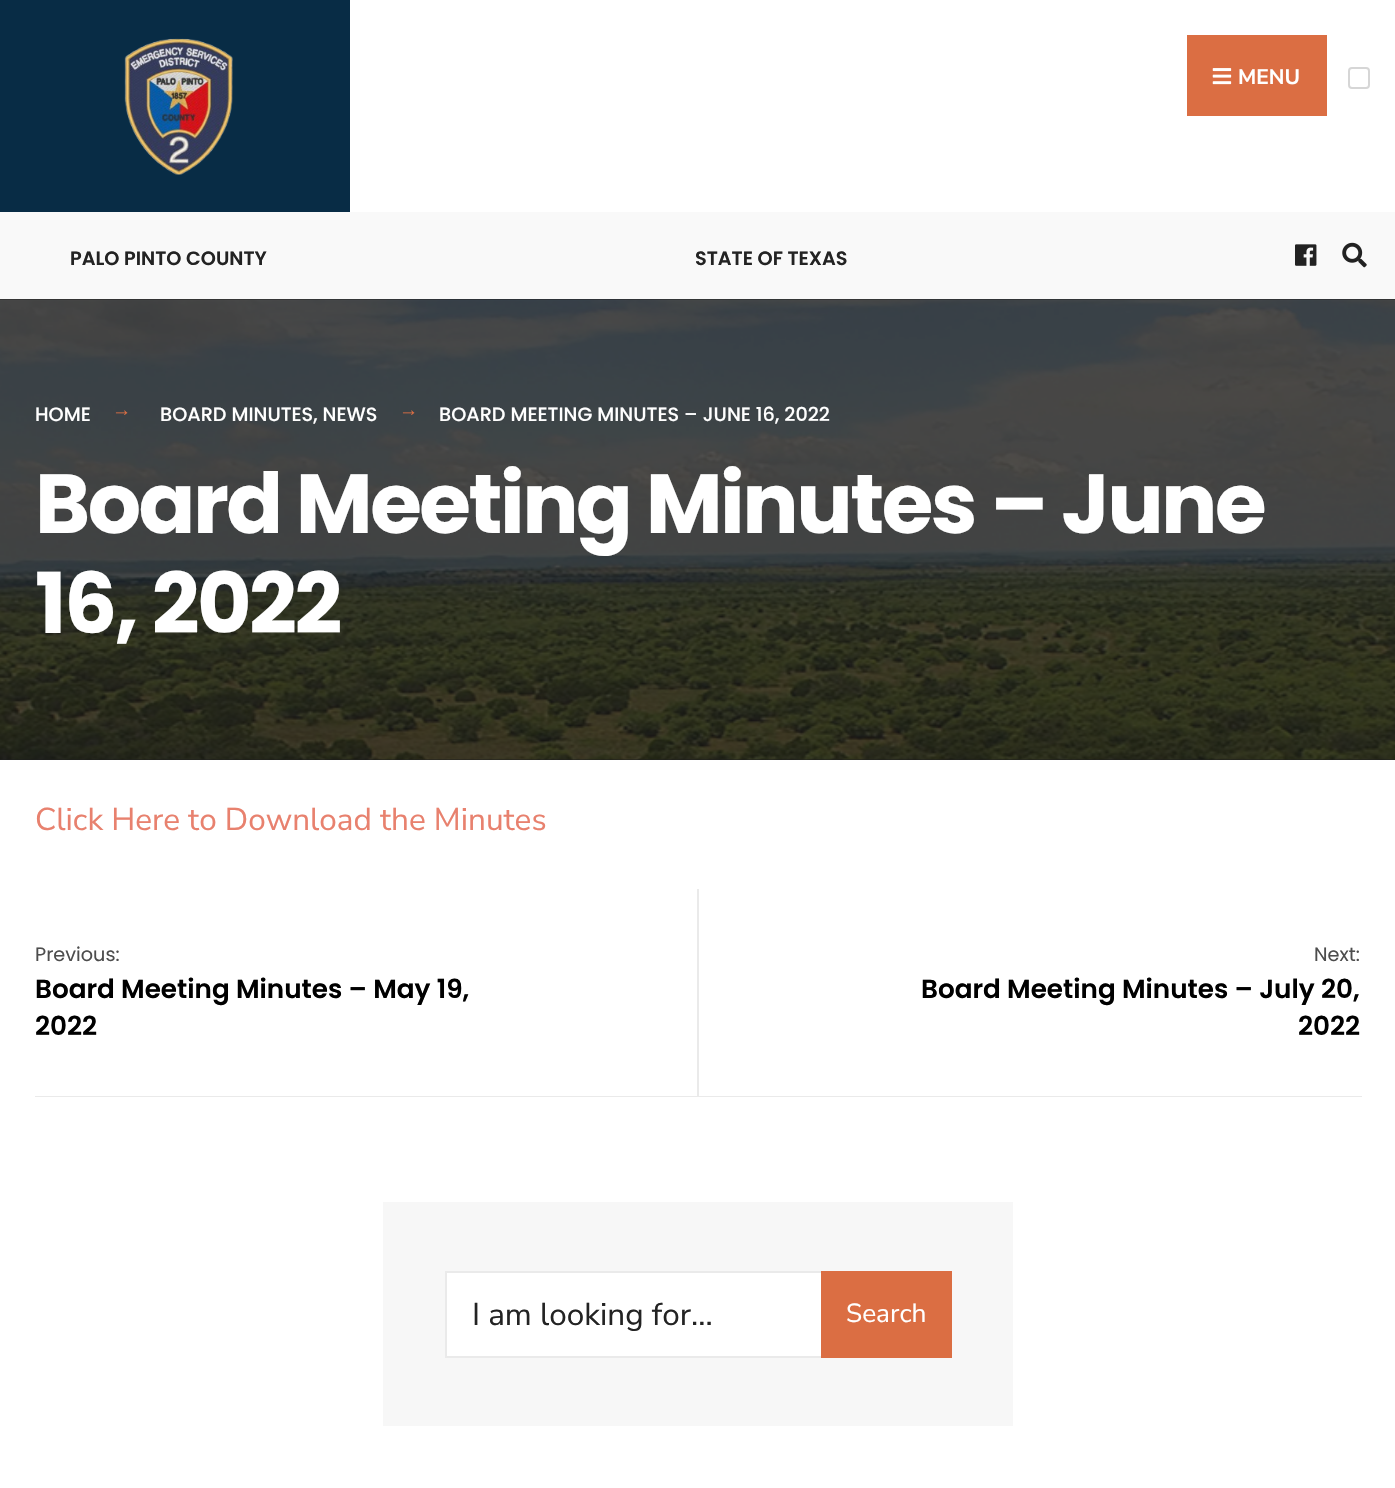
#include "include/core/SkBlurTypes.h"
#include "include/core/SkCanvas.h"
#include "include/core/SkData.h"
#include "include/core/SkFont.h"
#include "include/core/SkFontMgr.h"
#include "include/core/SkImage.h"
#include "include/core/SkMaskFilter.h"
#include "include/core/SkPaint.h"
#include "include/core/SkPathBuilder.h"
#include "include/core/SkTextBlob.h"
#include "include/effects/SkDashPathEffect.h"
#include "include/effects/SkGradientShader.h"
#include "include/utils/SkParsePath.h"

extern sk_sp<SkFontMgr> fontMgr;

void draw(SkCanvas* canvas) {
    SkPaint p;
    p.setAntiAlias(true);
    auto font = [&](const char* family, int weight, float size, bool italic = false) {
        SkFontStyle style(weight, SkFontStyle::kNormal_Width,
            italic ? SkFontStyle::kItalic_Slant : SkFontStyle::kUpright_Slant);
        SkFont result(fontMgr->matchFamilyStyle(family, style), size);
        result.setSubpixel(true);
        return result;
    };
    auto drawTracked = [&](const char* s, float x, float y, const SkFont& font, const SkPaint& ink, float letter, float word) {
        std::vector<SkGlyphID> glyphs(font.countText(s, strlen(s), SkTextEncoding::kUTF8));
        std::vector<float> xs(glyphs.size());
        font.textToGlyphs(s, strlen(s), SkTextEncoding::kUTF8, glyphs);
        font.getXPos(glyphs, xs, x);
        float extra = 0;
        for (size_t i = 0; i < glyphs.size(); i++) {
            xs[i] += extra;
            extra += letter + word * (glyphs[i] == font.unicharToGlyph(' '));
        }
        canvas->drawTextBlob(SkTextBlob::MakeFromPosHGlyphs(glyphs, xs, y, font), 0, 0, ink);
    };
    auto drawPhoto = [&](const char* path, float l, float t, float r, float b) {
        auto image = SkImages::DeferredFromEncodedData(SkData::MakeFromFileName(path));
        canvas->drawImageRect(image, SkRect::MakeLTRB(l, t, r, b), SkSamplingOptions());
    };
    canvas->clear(0xFFFFFFFF);
    p.setColor(0xFF082C45);
    canvas->drawRect(SkRect::MakeLTRB(0, 0, 350, 212), p);
    drawPhoto("media/1.png", 124, 38, 233, 175);
    p.setColor(0xFFDB6E43);
    canvas->drawRect(SkRect::MakeLTRB(1187, 35, 1327, 116), p);
    drawPhoto("media/2.png", 1212, 68, 1232, 85);
    auto font1 = font("Nunito Sans", 700, 21);
    p.setColor(0xFFFFFFFF);
    canvas->drawString("MENU", 1238, 84, font1, p);
    p.setStyle(SkPaint::kStroke_Style);
    p.setStrokeWidth(2);
    p.setColor(0xFFD6D6D6);
    canvas->drawRoundRect(SkRect::MakeLTRB(1349, 68, 1369, 88), 3, 3, p);
    p.setStyle(SkPaint::kFill_Style);
    p.setColor(0xFFF9F9F9);
    canvas->drawRect(SkRect::MakeLTRB(0, 212, 1395, 299), p);
    auto font2 = font("Poppins", 600, 19.25f);
    p.setColor(0xFF232323);
    canvas->drawString("PALO PINTO COUNTY", 70, 265, font2, p);
    canvas->drawString("STATE OF TEXAS", 695, 265, font2, p);
    drawPhoto("media/3.png", 1295, 244, 1317, 266);
    drawPhoto("media/4.png", 1342, 242, 1367, 268);
    p.setColor(0xFF1E1E1E);
    canvas->drawRect(SkRect::MakeLTRB(0, 299, 1395, 760), p);
    drawPhoto("media/5.png", 0, 299, 1395, 760);
    auto font3 = font("Poppins", 500, 19.25f);
    p.setColor(0xFFFFFFFF);
    canvas->drawString("HOME", 35, 421, font3, p);
    auto font4 = font("Liberation Serif", 400, 19.25f);
    p.setColor(0xFFDB6E43);
    canvas->drawString("→", 112, 416, font4, p);
    p.setColor(0xFFFFFFFF);
    canvas->drawString("BOARD MINUTES, NEWS", 160, 421, font3, p);
    p.setColor(0xFFDB6E43);
    canvas->drawString("→", 399, 416, font4, p);
    p.setColor(0xFFFFFFFF);
    canvas->drawString("BOARD MEETING MINUTES – JUNE 16, 2022", 439, 421, font3, p);
    auto font5 = font("Poppins", 700, 83.75f);
    drawTracked("Board Meeting Minutes – June", 35, 533, font5, p, -2.5f, 0);
    drawTracked("16, 2022", 35, 633, font5, p, -2.5f, 0);
    auto font6 = font("Nunito Sans", 400, 31.5f);
    p.setColor(0xFFE8816E);
    canvas->drawString("Click Here to Download the Minutes", 35, 830, font6, p);
    p.setColor(0xFFEAEAEA);
    canvas->drawRect(SkRect::MakeLTRB(35, 1096, 1362, 1097), p);
    canvas->drawRect(SkRect::MakeLTRB(697, 889, 699, 1096), p);
    auto font7 = font("Poppins", 400, 19.25f);
    p.setColor(0xFF4D4D4D);
    canvas->drawString("Previous:", 35, 961, font7, p);
    auto font8 = font("Poppins", 600, 26.25f);
    p.setColor(0xFF000000);
    canvas->drawString("Board Meeting Minutes – May 19,", 35, 998, font8, p);
    canvas->drawString("2022", 35, 1035, font8, p);
    p.setColor(0xFF4D4D4D);
    canvas->drawString("Next:", 1314, 961, font7, p);
    p.setColor(0xFF000000);
    canvas->drawString("Board Meeting Minutes – July 20,", 921, 998, font8, p);
    canvas->drawString("2022", 1298, 1035, font8, p);
    p.setColor(0xFFF7F7F7);
    canvas->drawRect(SkRect::MakeLTRB(383, 1202, 1013, 1426), p);
    p.setColor(0xFFFFFFFF);
    canvas->drawRect(SkRect::MakeLTRB(447, 1273, 821, 1356), p);
    p.setStyle(SkPaint::kStroke_Style);
    p.setColor(0xFFEAEAEA);
    canvas->drawRect(SkRect::MakeLTRB(446, 1272, 951, 1357), p);
    p.setStyle(SkPaint::kFill_Style);
    p.setColor(0xFF232323);
    canvas->drawString("I am looking for...", 472, 1325, font6, p);
    p.setColor(0xFFDB6E43);
    canvas->drawRect(SkRect::MakeLTRB(821, 1271, 952, 1358), p);
    auto font9 = font("Nunito Sans", 400, 26.25f);
    p.setColor(0xFFFFFFFF);
    canvas->drawString("Search", 846, 1322, font9, p);
}
